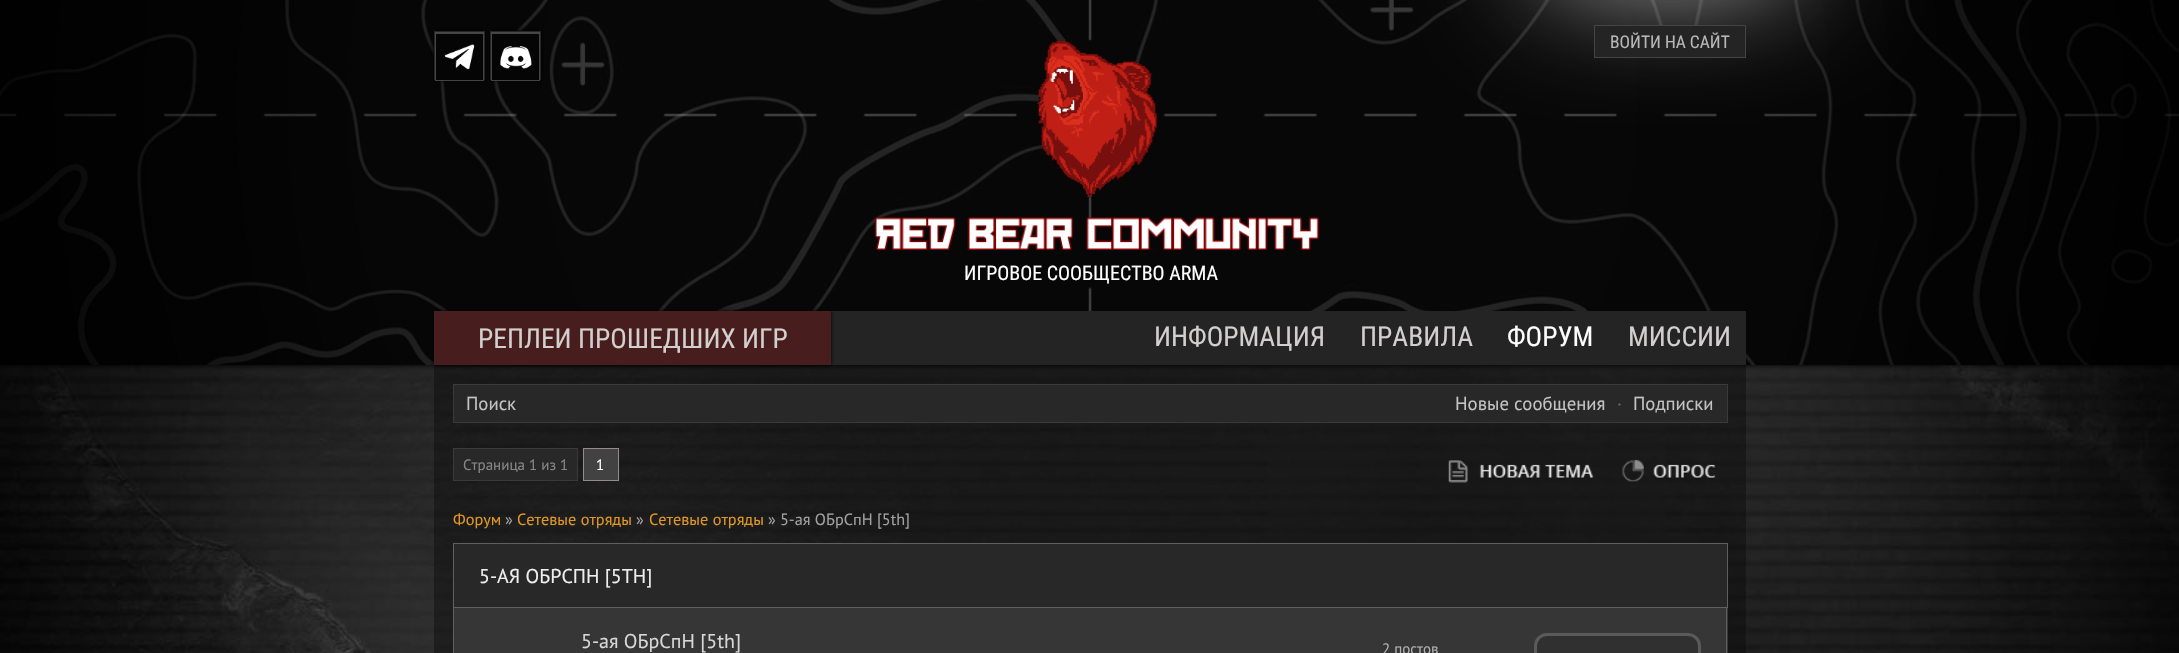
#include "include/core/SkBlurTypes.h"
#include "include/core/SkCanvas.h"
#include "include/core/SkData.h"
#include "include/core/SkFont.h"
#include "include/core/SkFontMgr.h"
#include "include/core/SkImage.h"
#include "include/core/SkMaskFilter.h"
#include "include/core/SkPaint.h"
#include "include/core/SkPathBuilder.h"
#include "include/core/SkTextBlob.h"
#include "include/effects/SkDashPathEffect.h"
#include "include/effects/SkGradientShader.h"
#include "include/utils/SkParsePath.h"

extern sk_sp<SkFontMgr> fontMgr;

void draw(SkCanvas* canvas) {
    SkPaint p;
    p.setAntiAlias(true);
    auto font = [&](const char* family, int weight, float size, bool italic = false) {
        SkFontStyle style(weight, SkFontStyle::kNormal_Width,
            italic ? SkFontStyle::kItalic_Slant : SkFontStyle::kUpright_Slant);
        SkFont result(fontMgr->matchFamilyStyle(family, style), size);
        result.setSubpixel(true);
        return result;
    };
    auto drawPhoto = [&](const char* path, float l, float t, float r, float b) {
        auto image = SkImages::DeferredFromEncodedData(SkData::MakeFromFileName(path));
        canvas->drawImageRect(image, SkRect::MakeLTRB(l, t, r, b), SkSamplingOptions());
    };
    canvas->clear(0xFFFFFFFF);
    drawPhoto("media/6.png", 0, 365, 2179, 653);
    p.setColor(0x6B080808);
    canvas->drawRect(SkRect::MakeLTRB(434, 365, 1746, 653), p);
    p.setColor(0xFF000000);
    p.setMaskFilter(SkMaskFilter::MakeBlur(kNormal_SkBlurStyle, 3));
    canvas->drawRect(SkRect::MakeLTRB(0, 0, 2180, 365), p);
    p.setMaskFilter(nullptr);
    drawPhoto("media/1.png", 0, 0, 2179, 365);
    p.setMaskFilter(SkMaskFilter::MakeBlur(kNormal_SkBlurStyle, 3));
    canvas->drawRect(SkRect::MakeLTRB(434, 31, 485, 80), p);
    p.setMaskFilter(nullptr);
    p.setColor(0xFF484848);
    canvas->drawRect(SkRect::MakeLTRB(435, 32, 484, 33), p);
    p.setStyle(SkPaint::kStroke_Style);
    p.setStrokeWidth(1);
    p.setColor(0xFF262626);
    canvas->drawRect(SkRect::MakeLTRB(434.5f, 31.5f, 484.5f, 79.5f), p);
    p.setStyle(SkPaint::kFill_Style);
    p.setColor(0xFF050505);
    canvas->drawRect(SkRect::MakeLTRB(435.5f, 33.5f, 483.5f, 80.5f), p);
    p.setStyle(SkPaint::kStroke_Style);
    p.setColor(0xFF444444);
    canvas->drawRect(SkRect::MakeLTRB(435.5f, 33.5f, 483.5f, 80.5f), p);
    drawPhoto("media/2.png", 444, 44, 475, 70);
    p.setStyle(SkPaint::kFill_Style);
    p.setColor(0xFF000000);
    p.setMaskFilter(SkMaskFilter::MakeBlur(kNormal_SkBlurStyle, 3));
    canvas->drawRect(SkRect::MakeLTRB(490, 31, 541, 80), p);
    p.setMaskFilter(nullptr);
    p.setColor(0xFF484848);
    canvas->drawRect(SkRect::MakeLTRB(491, 32, 540, 33), p);
    p.setStyle(SkPaint::kStroke_Style);
    p.setColor(0xFF262626);
    canvas->drawRect(SkRect::MakeLTRB(490.5f, 31.5f, 540.5f, 79.5f), p);
    p.setStyle(SkPaint::kFill_Style);
    p.setColor(0xFF050505);
    canvas->drawRect(SkRect::MakeLTRB(491.5f, 33.5f, 539.5f, 80.5f), p);
    p.setStyle(SkPaint::kStroke_Style);
    p.setColor(0xFF444444);
    canvas->drawRect(SkRect::MakeLTRB(491.5f, 33.5f, 539.5f, 80.5f), p);
    drawPhoto("media/3.png", 500, 46, 532, 69);
    p.setStyle(SkPaint::kFill_Style);
    p.setColor(0xD4FFFFFF);
    p.setMaskFilter(SkMaskFilter::MakeBlur(kNormal_SkBlurStyle, 62.5f));
    canvas->drawRect(SkRect::MakeLTRB(1548, -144, 1788, -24), p);
    p.setMaskFilter(nullptr);
    p.setColor(0xFF242424);
    canvas->drawRect(SkRect::MakeLTRB(1594.5f, 25.5f, 1745.5f, 57.5f), p);
    p.setStyle(SkPaint::kStroke_Style);
    p.setColor(0xFF444444);
    canvas->drawRect(SkRect::MakeLTRB(1594.5f, 25.5f, 1745.5f, 57.5f), p);
    auto font1 = font("Roboto Condensed", 400, 17.5f);
    p.setStyle(SkPaint::kFill_Style);
    p.setColor(0xFFB7B7B7);
    canvas->drawString("ВОЙТИ НА САЙТ", 1610, 48, font1, p);
    drawPhoto("media/4.png", 1037, 40, 1157, 198);
    drawPhoto("media/5.png", 875, 217, 1319, 250);
    auto font2 = font("Roboto Condensed", 400, 20);
    p.setColor(0xFFFFFFFF);
    canvas->drawString("ИГРОВОЕ СООБЩЕСТВО ARMA", 964, 280, font2, p);
    p.setColor(0xFF242424);
    canvas->drawRect(SkRect::MakeLTRB(831, 311, 1746, 365), p);
    p.setColor(0xFF000000);
    p.setMaskFilter(SkMaskFilter::MakeBlur(kNormal_SkBlurStyle, 2));
    canvas->drawRect(SkRect::MakeLTRB(434, 311, 831, 365), p);
    p.setMaskFilter(nullptr);
    p.setColor(0xFF481D1D);
    canvas->drawRect(SkRect::MakeLTRB(434, 311, 831, 365), p);
    auto font3 = font("Roboto Condensed", 400, 27.5f);
    p.setColor(0xFFD2CFCF);
    {
        const struct { const char* s; float x, y; } items[] = {
            {"РЕПЛЕИ ПРОШЕДШИХ ИГР", 478, 348},
            {"ИНФОРМАЦИЯ", 1154, 346},
            {"ПРАВИЛА", 1360, 346},
        };
        for (auto [s, x, y] : items) {
            canvas->drawString(s, x, y, font3, p);
        }
    }
    p.setColor(0xFFFFFFFF);
    canvas->drawString("ФОРУМ", 1507, 346, font3, p);
    p.setColor(0xFFD2CFCF);
    canvas->drawString("МИССИИ", 1628, 346, font3, p);
    p.setColor(0xFF282828);
    canvas->drawRect(SkRect::MakeLTRB(453.5f, 384.5f, 1727.5f, 422.5f), p);
    p.setStyle(SkPaint::kStroke_Style);
    p.setColor(0xFF3A3A3A);
    canvas->drawRect(SkRect::MakeLTRB(453.5f, 384.5f, 1727.5f, 422.5f), p);
    auto font4 = font("PT Sans", 400, 18.75f);
    p.setStyle(SkPaint::kFill_Style);
    p.setColor(0xFFC3C3C3);
    canvas->drawString("Поиск", 466, 410, font4, p);
    canvas->drawString("Новые сообщения", 1455, 410, font4, p);
    p.setColor(0xFF666666);
    canvas->drawString("·", 1617, 410, font4, p);
    p.setColor(0xFFC3C3C3);
    canvas->drawString("Подписки", 1633, 410, font4, p);
    p.setColor(0xFF282828);
    canvas->drawRect(SkRect::MakeLTRB(453.5f, 448.5f, 577.5f, 480.5f), p);
    p.setStyle(SkPaint::kStroke_Style);
    p.setColor(0xFF3A3A3A);
    canvas->drawRect(SkRect::MakeLTRB(453.5f, 448.5f, 577.5f, 480.5f), p);
    auto font5 = font("PT Sans", 400, 15);
    p.setStyle(SkPaint::kFill_Style);
    p.setColor(0xFF878787);
    canvas->drawString("Страница 1 из 1", 463, 470, font5, p);
    p.setColor(0xFF424242);
    canvas->drawRect(SkRect::MakeLTRB(583.5f, 448.5f, 618.5f, 480.5f), p);
    p.setStyle(SkPaint::kStroke_Style);
    p.setColor(0xFF938C8C);
    canvas->drawRect(SkRect::MakeLTRB(583.5f, 448.5f, 618.5f, 480.5f), p);
    p.setStyle(SkPaint::kFill_Style);
    p.setColor(0xFFFFFFFF);
    canvas->drawString("1", 596, 470, font5, p);
    drawPhoto("media/7.png", 1448, 460, 1594, 483);
    drawPhoto("media/8.png", 1622, 459, 1716, 482);
    auto font6 = font("PT Sans", 400, 16.25f);
    p.setColor(0xFFE19625);
    canvas->drawString("Форум", 453, 525, font6, p);
    p.setColor(0xFFA1A1A1);
    canvas->drawString("»", 505, 525, font6, p);
    p.setColor(0xFFE19625);
    canvas->drawString("Сетевые отряды", 517, 525, font6, p);
    p.setColor(0xFFA1A1A1);
    canvas->drawString("»", 636, 525, font6, p);
    p.setColor(0xFFE19625);
    canvas->drawString("Сетевые отряды", 649, 525, font6, p);
    p.setColor(0xFFA1A1A1);
    canvas->drawString("»", 768, 525, font6, p);
    canvas->drawString("5-ая ОБрСпН [5th]", 780, 525, font6, p);
    p.setColor(0xFF363636);
    canvas->drawRect(SkRect::MakeLTRB(454, 608, 1728, 653), p);
    p.setColor(0xFF282828);
    canvas->drawRect(SkRect::MakeLTRB(453.5f, 543.5f, 1727.5f, 607.5f), p);
    p.setStyle(SkPaint::kStroke_Style);
    p.setColor(0xFF606060);
    canvas->drawRect(SkRect::MakeLTRB(453.5f, 543.5f, 1727.5f, 607.5f), p);
    auto font7 = font("PT Sans", 400, 20);
    p.setStyle(SkPaint::kFill_Style);
    p.setColor(0xFFEFEEEE);
    canvas->drawString("5-АЯ ОБРСПН [5TH]", 479, 583, font7, p);
    p.setColor(0xFF606060);
    canvas->drawRect(SkRect::MakeLTRB(453, 608, 454, 653), p);
    p.setColor(0xFFD7D7D7);
    canvas->drawString("5-ая ОБрСпН [5th]", 581, 648, font7, p);
    p.setColor(0xFFB1B1B1);
    canvas->drawString("2 постов", 1382, 654, font5, p);
    p.setColor(0xFF606060);
    canvas->drawRect(SkRect::MakeLTRB(1726, 608, 1727, 653), p);
    p.setColor(0xFF303030);
    canvas->drawRoundRect(SkRect::MakeLTRB(1535.5f, 634.5f, 1699.5f, 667.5f), 11.5f, 11.5f, p);
    p.setStyle(SkPaint::kStroke_Style);
    p.setStrokeWidth(3);
    p.setColor(0xFF5A5A5A);
    canvas->drawRoundRect(SkRect::MakeLTRB(1535.5f, 634.5f, 1699.5f, 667.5f), 11.5f, 11.5f, p);
}
